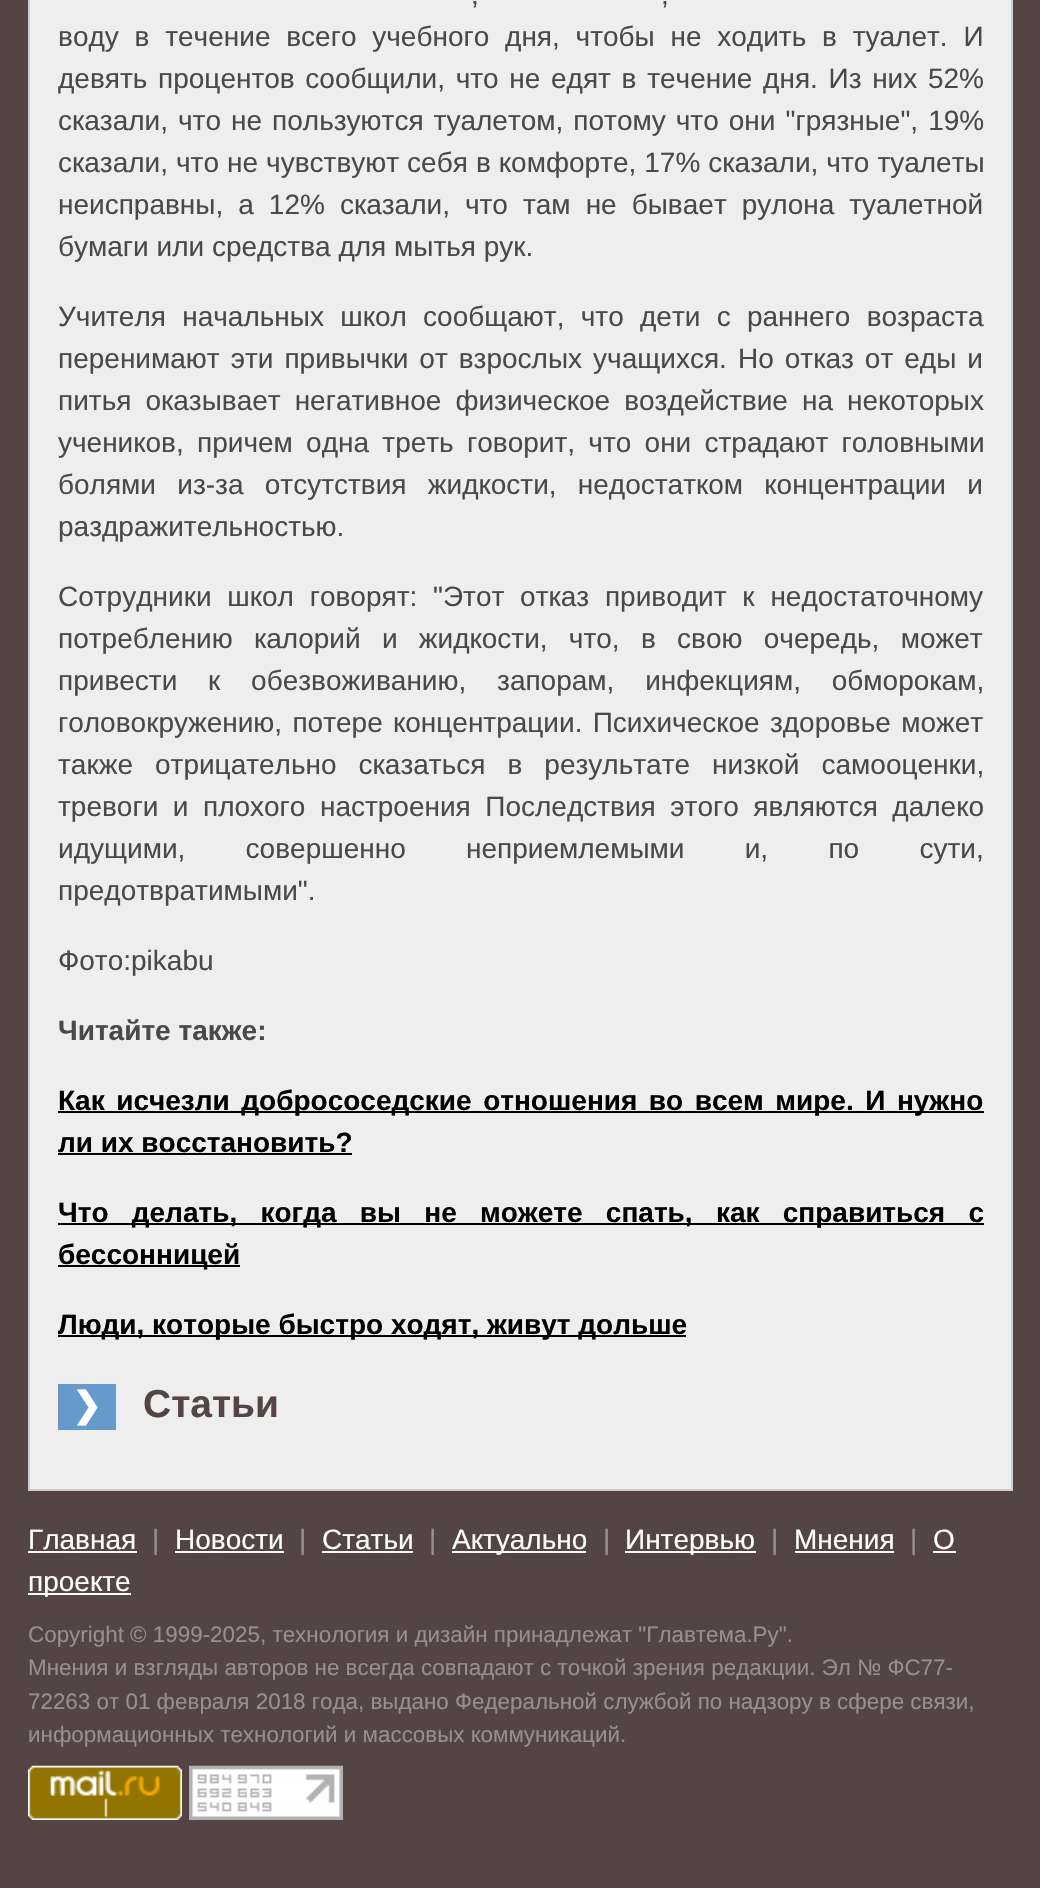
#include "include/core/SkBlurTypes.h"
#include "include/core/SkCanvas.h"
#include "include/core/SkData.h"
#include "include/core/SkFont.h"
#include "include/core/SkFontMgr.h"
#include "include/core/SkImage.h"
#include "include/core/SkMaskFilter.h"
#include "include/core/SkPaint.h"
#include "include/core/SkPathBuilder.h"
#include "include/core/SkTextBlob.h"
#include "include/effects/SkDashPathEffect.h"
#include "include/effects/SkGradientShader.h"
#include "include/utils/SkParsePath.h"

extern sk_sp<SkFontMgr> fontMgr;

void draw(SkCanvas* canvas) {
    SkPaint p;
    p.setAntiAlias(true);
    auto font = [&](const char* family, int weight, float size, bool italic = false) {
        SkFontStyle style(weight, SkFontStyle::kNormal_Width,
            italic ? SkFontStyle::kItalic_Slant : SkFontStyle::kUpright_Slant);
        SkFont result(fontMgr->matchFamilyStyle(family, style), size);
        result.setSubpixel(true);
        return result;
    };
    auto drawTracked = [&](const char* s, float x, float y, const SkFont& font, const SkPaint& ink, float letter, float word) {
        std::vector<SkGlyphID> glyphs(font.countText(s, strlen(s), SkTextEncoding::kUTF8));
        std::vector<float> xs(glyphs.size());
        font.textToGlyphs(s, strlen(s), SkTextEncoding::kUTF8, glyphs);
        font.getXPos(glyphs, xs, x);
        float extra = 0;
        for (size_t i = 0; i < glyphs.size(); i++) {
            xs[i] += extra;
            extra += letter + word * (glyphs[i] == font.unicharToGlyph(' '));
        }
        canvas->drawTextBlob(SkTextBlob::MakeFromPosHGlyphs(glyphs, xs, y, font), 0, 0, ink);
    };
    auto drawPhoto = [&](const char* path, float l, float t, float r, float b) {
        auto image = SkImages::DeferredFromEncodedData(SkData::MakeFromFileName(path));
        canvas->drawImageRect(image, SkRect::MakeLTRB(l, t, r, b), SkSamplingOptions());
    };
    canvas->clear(0xFF544444);
    p.setColor(0xFFEEEEEE);
    canvas->drawRect(SkRect::MakeLTRB(29, -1, 1012, 1490), p);
    p.setStyle(SkPaint::kStroke_Style);
    p.setStrokeWidth(2);
    p.setColor(0xFFCFCFCF);
    canvas->drawRect(SkRect::MakeLTRB(29, -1, 1012, 1490), p);
    auto font1 = font("Liberation Sans", 400, 28);
    p.setStyle(SkPaint::kFill_Style);
    p.setColor(0xFF494949);
    drawTracked(",", 471, 4, font1, p, 0, 4);
    drawTracked(",", 661, 4, font1, p, 0, 4);
    drawTracked("воду в течение всего учебного дня, чтобы не ходить в туалет. И", 58, 46, font1, p, 0, 8);
    drawTracked("девять процентов сообщили, что не едят в течение дня. Из них 52%", 58, 88, font1, p, 0, 2.9f);
    drawTracked("сказали, что не пользуются туалетом, потому что они \"грязные\", 19%", 58, 130, font1, p, 0, 2.25f);
    drawTracked("сказали, что не чувствуют себя в комфорте, 17% сказали, что туалеты", 58, 172, font1, p, 0, 0.25f);
    drawTracked("неисправны, а 12% сказали, что там не бывает рулона туалетной", 58, 214, font1, p, 0, 7.25f);
    canvas->drawString("бумаги или средства для мытья рук.", 58, 256, font1, p);
    drawTracked("Учителя начальных школ сообщают, что дети с раннего возраста", 58, 326, font1, p, 0, 8.5f);
    drawTracked("перенимают эти привычки от взрослых учащихся. Но отказ от еды и", 58, 368, font1, p, 0, 3.25f);
    drawTracked("питья оказывает негативное физическое воздействие на некоторых", 58, 410, font1, p, 0, 6.25f);
    drawTracked("учеников, причем одна треть говорит, что они страдают головными", 58, 452, font1, p, 0, 5.5f);
    drawTracked("болями из-за отсутствия жидкости, недостатком концентрации и", 58, 494, font1, p, 0, 13.5f);
    canvas->drawString("раздражительностью.", 58, 536, font1, p);
    drawTracked("Сотрудники школ говорят: \"Этот отказ приводит к недостаточному", 58, 606, font1, p, 0, 8);
    drawTracked("потреблению калорий и жидкости, что, в свою очередь, может", 58, 648, font1, p, 0, 13.5f);
    drawTracked("привести к обезвоживанию, запорам, инфекциям, обморокам,", 58, 690, font1, p, 0, 23);
    drawTracked("головокружению, потере концентрации. Психическое здоровье может", 58, 732, font1, p, 0, 2.5f);
    drawTracked("также отрицательно сказаться в результате низкой самооценки,", 58, 774, font1, p, 0, 14.25f);
    drawTracked("тревоги и плохого настроения Последствия этого являются далеко", 58, 816, font1, p, 0, 6.75f);
    drawTracked("идущими, совершенно неприемлемыми и, по сути,", 58, 858, font1, p, 0, 52.5f);
    canvas->drawString("предотвратимыми\".", 58, 900, font1, p);
    canvas->drawString("Фото:pikabu", 58, 970, font1, p);
    auto font2 = font("Liberation Sans", 700, 28);
    canvas->drawString("Читайте также:", 58, 1040, font2, p);
    p.setColor(0xFF000000);
    canvas->drawRect(SkRect::MakeLTRB(58, 1111, 984, 1113), p);
    drawTracked("Как исчезли добрососедские отношения во всем мире. И нужно", 58, 1110, font2, p, 0, 3.75f);
    canvas->drawString("ли их восстановить?", 58, 1152, font2, p);
    canvas->drawRect(SkRect::MakeLTRB(58, 1153, 352, 1155), p);
    canvas->drawRect(SkRect::MakeLTRB(58, 1223, 984, 1225), p);
    drawTracked("Что делать, когда вы не можете спать, как справиться с", 58, 1222, font2, p, 0, 15.5f);
    canvas->drawRect(SkRect::MakeLTRB(58, 1265, 240, 1267), p);
    canvas->drawString("бессонницей", 58, 1264, font2, p);
    canvas->drawRect(SkRect::MakeLTRB(58, 1335, 686, 1337), p);
    canvas->drawString("Люди, которые быстро ходят, живут дольше", 58, 1334, font2, p);
    p.setColor(0xFF6699CC);
    canvas->drawRect(SkRect::MakeLTRB(58, 1384, 116, 1430), p);
    auto font3 = font("DejaVu Sans", 700, 35);
    p.setColor(0xFFFFFFFF);
    canvas->drawString("❯", 72, 1417, font3, p);
    auto font4 = font("Liberation Sans", 700, 39);
    p.setColor(0xFF544444);
    canvas->drawString("Статьи", 143, 1417, font4, p);
    p.setColor(0xFFFFFFFF);
    canvas->drawString("Главная", 28, 1549, font1, p);
    canvas->drawRect(SkRect::MakeLTRB(28, 1551, 137, 1553), p);
    p.setColor(0xFF988F8F);
    canvas->drawString("|", 152, 1549, font1, p);
    p.setColor(0xFFFFFFFF);
    canvas->drawString("Новости", 175, 1549, font1, p);
    canvas->drawRect(SkRect::MakeLTRB(175, 1551, 284, 1553), p);
    p.setColor(0xFF988F8F);
    canvas->drawString("|", 299, 1549, font1, p);
    p.setColor(0xFFFFFFFF);
    canvas->drawString("Статьи", 322, 1549, font1, p);
    canvas->drawRect(SkRect::MakeLTRB(322, 1551, 413, 1553), p);
    p.setColor(0xFF988F8F);
    canvas->drawString("|", 429, 1549, font1, p);
    p.setColor(0xFFFFFFFF);
    canvas->drawRect(SkRect::MakeLTRB(452, 1551, 586, 1553), p);
    canvas->drawString("Актуально", 452, 1549, font1, p);
    p.setColor(0xFF988F8F);
    canvas->drawString("|", 603, 1549, font1, p);
    p.setColor(0xFFFFFFFF);
    canvas->drawRect(SkRect::MakeLTRB(625, 1551, 756, 1553), p);
    canvas->drawString("Интервью", 625, 1549, font1, p);
    p.setColor(0xFF988F8F);
    canvas->drawString("|", 771, 1549, font1, p);
    p.setColor(0xFFFFFFFF);
    canvas->drawString("Мнения", 794, 1549, font1, p);
    canvas->drawRect(SkRect::MakeLTRB(795, 1551, 894, 1553), p);
    p.setColor(0xFF988F8F);
    canvas->drawString("|", 910, 1549, font1, p);
    p.setColor(0xFFFFFFFF);
    canvas->drawString("О", 933, 1549, font1, p);
    canvas->drawRect(SkRect::MakeLTRB(933, 1551, 956, 1553), p);
    canvas->drawRect(SkRect::MakeLTRB(28, 1593, 131, 1595), p);
    canvas->drawString("проекте", 28, 1591, font1, p);
    auto font5 = font("Liberation Sans", 400, 22.4f);
    p.setColor(0xFF988F8F);
    {
        const struct { const char* s; float x, y; } items[] = {
            {"Copyright © 1999-2025, технология и дизайн принадлежат \"Главтема.Ру\".", 28, 1642},
            {"Мнения и взгляды авторов не всегда совпадают с точкой зрения редакции. Эл № ФС77-", 28, 1675},
            {"72263 от 01 февраля 2018 года, выдано Федеральной службой по надзору в сфере связи,", 28, 1709},
            {"информационных технологий и массовых коммуникаций.", 28, 1742},
        };
        for (auto [s, x, y] : items) {
            canvas->drawString(s, x, y, font5, p);
        }
    }
    drawPhoto("media/1.png", 28, 1765, 182, 1820);
    drawPhoto("media/2.png", 189, 1765, 343, 1820);
}
